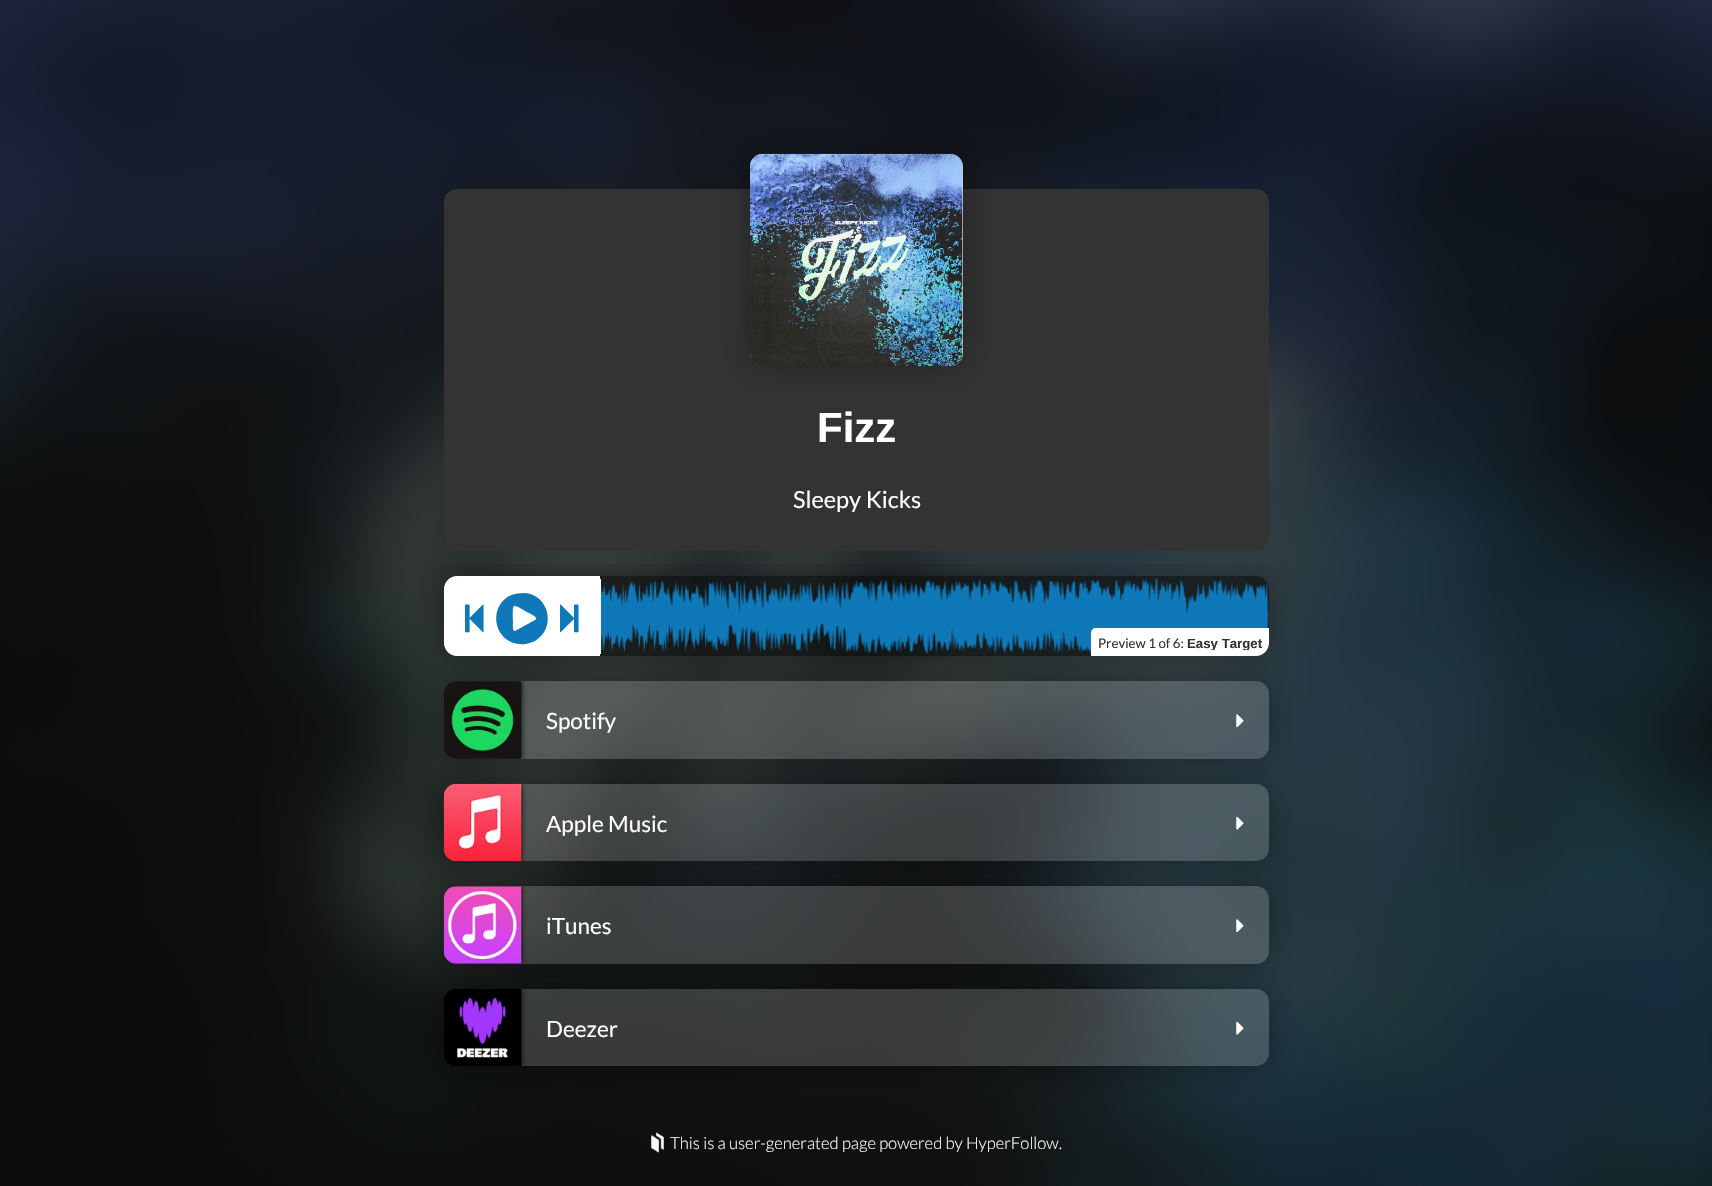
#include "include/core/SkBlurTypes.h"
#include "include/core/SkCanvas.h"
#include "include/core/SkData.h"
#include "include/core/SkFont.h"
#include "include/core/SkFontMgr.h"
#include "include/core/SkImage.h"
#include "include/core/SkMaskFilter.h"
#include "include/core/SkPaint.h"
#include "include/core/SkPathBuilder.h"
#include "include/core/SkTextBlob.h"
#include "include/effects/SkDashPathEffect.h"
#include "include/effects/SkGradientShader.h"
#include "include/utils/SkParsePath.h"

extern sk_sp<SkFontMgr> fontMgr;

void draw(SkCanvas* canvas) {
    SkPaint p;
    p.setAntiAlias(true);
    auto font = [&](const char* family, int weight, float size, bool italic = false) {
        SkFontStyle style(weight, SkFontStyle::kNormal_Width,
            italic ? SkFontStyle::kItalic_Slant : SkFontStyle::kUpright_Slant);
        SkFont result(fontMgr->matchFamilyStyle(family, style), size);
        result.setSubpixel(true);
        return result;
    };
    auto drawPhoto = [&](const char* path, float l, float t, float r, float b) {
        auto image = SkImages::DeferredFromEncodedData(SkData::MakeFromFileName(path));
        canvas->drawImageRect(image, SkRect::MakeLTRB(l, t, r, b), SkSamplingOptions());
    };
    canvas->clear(0xFF000000);
    drawPhoto("media/1.png", 0, 0, 1712, 1186);
    p.setColor(0xFF333333);
    canvas->drawRoundRect(SkRect::MakeLTRB(444, 189, 1269, 551), 13, 13, p);
    p.setColor(0x59000000);
    p.setMaskFilter(SkMaskFilter::MakeBlur(kNormal_SkBlurStyle, 15.5f));
    canvas->drawRoundRect(SkRect::MakeLTRB(750, 154, 963, 366), 13, 13, p);
    p.setMaskFilter(nullptr);
    p.setColor(0xFFCCCCCC);
    canvas->drawRoundRect(SkRect::MakeLTRB(750, 154, 963, 366), 13, 13, p);
    drawPhoto("media/2.png", 750, 153, 963, 367);
    auto font1 = font("Liberation Sans", 700, 42);
    p.setColor(0xFFFFFFFF);
    canvas->drawString("Fizz", 817, 442, font1, p);
    auto font2 = font("Lato", 400, 23.5f);
    canvas->drawString("Sleepy Kicks", 793, 508, font2, p);
    canvas->save();
    canvas->clipRect(SkRect::MakeLTRB(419, 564, 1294, 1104));
    canvas->clipPath(SkPathBuilder(SkPathFillType::kEvenOdd).moveTo(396, 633).lineTo(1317, 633).lineTo(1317, 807).lineTo(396, 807).close().moveTo(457, 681).lineTo(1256, 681).cubicTo(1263, 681, 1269, 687, 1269, 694).lineTo(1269, 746).cubicTo(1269, 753, 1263, 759, 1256, 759).lineTo(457, 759).cubicTo(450, 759, 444, 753, 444, 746).lineTo(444, 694).cubicTo(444, 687, 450, 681, 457, 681).close().detach(), true);
    p.setColor(0x59000000);
    p.setMaskFilter(SkMaskFilter::MakeBlur(kNormal_SkBlurStyle, 15.5f));
    canvas->drawRoundRect(SkRect::MakeLTRB(444, 681, 1269, 759), 13, 13, p);
    p.setMaskFilter(nullptr);
    canvas->restore();
    p.setColor(0x2BFFFFFF);
    canvas->drawRoundRect(SkRect::MakeLTRB(444, 681, 1269, 759), 13, 13, p);
    canvas->save();
    canvas->clipPath(SkPathBuilder().moveTo(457, 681).lineTo(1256, 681).cubicTo(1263, 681, 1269, 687, 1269, 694).lineTo(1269, 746).cubicTo(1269, 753, 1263, 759, 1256, 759).lineTo(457, 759).cubicTo(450, 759, 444, 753, 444, 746).lineTo(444, 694).cubicTo(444, 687, 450, 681, 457, 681).close().detach(), true);
    p.setColor(0xFF000000);
    p.setMaskFilter(SkMaskFilter::MakeBlur(kNormal_SkBlurStyle, 3));
    canvas->drawRect(SkRect::MakeLTRB(444, 681, 521, 759), p);
    p.setMaskFilter(nullptr);
    canvas->restore();
    drawPhoto("media/6.png", 444, 681, 522, 759);
    canvas->save();
    canvas->clipRect(SkRect::MakeLTRB(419, 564, 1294, 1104));
    canvas->clipPath(SkPathBuilder(SkPathFillType::kEvenOdd).moveTo(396, 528).lineTo(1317, 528).lineTo(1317, 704).lineTo(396, 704).close().moveTo(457, 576).lineTo(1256, 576).cubicTo(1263, 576, 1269, 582, 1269, 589).lineTo(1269, 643).cubicTo(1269, 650, 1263, 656, 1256, 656).lineTo(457, 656).cubicTo(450, 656, 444, 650, 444, 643).lineTo(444, 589).cubicTo(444, 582, 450, 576, 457, 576).close().detach(), true);
    p.setColor(0x59000000);
    p.setMaskFilter(SkMaskFilter::MakeBlur(kNormal_SkBlurStyle, 15.5f));
    canvas->drawRoundRect(SkRect::MakeLTRB(444, 576, 1269, 656), 13, 13, p);
    p.setMaskFilter(nullptr);
    canvas->restore();
    p.setColor(0xFFFFFFFF);
    canvas->drawPath(SkPathBuilder().moveTo(457, 576).lineTo(600, 576).lineTo(600, 656).lineTo(457, 656).cubicTo(450, 656, 444, 650, 444, 643).lineTo(444, 589).cubicTo(444, 582, 450, 576, 457, 576).close().detach(), p);
    drawPhoto("media/3.png", 465, 604, 484, 633);
    p.setColor(0xFF0F78B8);
    canvas->drawPath(SkPathBuilder().moveTo(509, 596).cubicTo(513, 594, 519, 593, 524, 593).cubicTo(549, 594, 557, 628, 535, 641).cubicTo(530, 643, 525, 645, 520, 644).cubicTo(495, 643, 487, 609, 509, 596).close().moveTo(535, 620).cubicTo(540, 618, 529, 613, 529, 613).cubicTo(526, 612, 517, 605, 514, 606).cubicTo(512, 607, 513, 619, 513, 622).cubicTo(513, 624, 512, 631, 515, 631).close().detach(), p);
    drawPhoto("media/4.png", 560, 604, 579, 633);
    p.setColor(0x80000000);
    canvas->drawPath(SkPathBuilder().moveTo(600, 576).lineTo(1256, 576).cubicTo(1263, 576, 1269, 582, 1269, 589).lineTo(1269, 643).cubicTo(1269, 650, 1263, 656, 1256, 656).lineTo(600, 656).close().detach(), p);
    p.setColor(0xFFFFFFFF);
    canvas->drawRect(SkRect::MakeLTRB(600, 579, 601, 654), p);
    drawPhoto("media/5.png", 601, 578, 1269, 654);
    canvas->drawPath(SkPathBuilder().moveTo(1096, 628).lineTo(1269, 628).lineTo(1269, 643).cubicTo(1269, 650, 1263, 656, 1256, 656).lineTo(1091, 656).lineTo(1091, 633).cubicTo(1091, 630, 1093, 628, 1096, 628).close().detach(), p);
    auto font3 = font("Lato", 400, 13.25f);
    p.setColor(0xFF333333);
    canvas->drawString("Preview 1 of 6:", 1098, 648, font3, p);
    canvas->save();
    canvas->clipRect(SkRect::MakeLTRB(1098, 634, 1263, 650));
    auto font4 = font("Liberation Sans", 700, 13.25f);
    canvas->drawString("Easy Target", 1187, 648, font4, p);
    canvas->restore();
    auto font5 = font("Lato", 400, 22.5f);
    p.setColor(0xFFFFFFFF);
    canvas->drawString("Spotify", 546, 729, font5, p);
    drawPhoto("media/7.png", 1236, 714, 1244, 728);
    canvas->save();
    canvas->clipRect(SkRect::MakeLTRB(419, 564, 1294, 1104));
    canvas->clipPath(SkPathBuilder(SkPathFillType::kEvenOdd).moveTo(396, 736).lineTo(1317, 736).lineTo(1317, 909).lineTo(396, 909).close().moveTo(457, 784).lineTo(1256, 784).cubicTo(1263, 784, 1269, 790, 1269, 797).lineTo(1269, 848).cubicTo(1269, 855, 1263, 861, 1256, 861).lineTo(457, 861).cubicTo(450, 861, 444, 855, 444, 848).lineTo(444, 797).cubicTo(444, 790, 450, 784, 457, 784).close().detach(), true);
    p.setColor(0x59000000);
    p.setMaskFilter(SkMaskFilter::MakeBlur(kNormal_SkBlurStyle, 15.5f));
    canvas->drawRoundRect(SkRect::MakeLTRB(444, 784, 1269, 861), 13, 13, p);
    p.setMaskFilter(nullptr);
    canvas->restore();
    p.setColor(0x2BFFFFFF);
    canvas->drawRoundRect(SkRect::MakeLTRB(444, 784, 1269, 861), 13, 13, p);
    canvas->save();
    canvas->clipPath(SkPathBuilder().moveTo(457, 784).lineTo(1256, 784).cubicTo(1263, 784, 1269, 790, 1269, 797).lineTo(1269, 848).cubicTo(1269, 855, 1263, 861, 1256, 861).lineTo(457, 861).cubicTo(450, 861, 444, 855, 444, 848).lineTo(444, 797).cubicTo(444, 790, 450, 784, 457, 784).close().detach(), true);
    p.setColor(0xFF000000);
    p.setMaskFilter(SkMaskFilter::MakeBlur(kNormal_SkBlurStyle, 3));
    canvas->drawRect(SkRect::MakeLTRB(444, 784, 521, 861), p);
    p.setMaskFilter(nullptr);
    canvas->restore();
    drawPhoto("media/8.png", 443, 783, 522, 862);
    p.setColor(0xFFFFFFFF);
    canvas->drawString("Apple Music", 546, 832, font5, p);
    drawPhoto("media/9.png", 1236, 816, 1244, 830);
    canvas->save();
    canvas->clipRect(SkRect::MakeLTRB(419, 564, 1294, 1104));
    canvas->clipPath(SkPathBuilder(SkPathFillType::kEvenOdd).moveTo(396, 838).lineTo(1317, 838).lineTo(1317, 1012).lineTo(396, 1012).close().moveTo(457, 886).lineTo(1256, 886).cubicTo(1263, 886, 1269, 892, 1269, 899).lineTo(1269, 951).cubicTo(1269, 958, 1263, 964, 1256, 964).lineTo(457, 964).cubicTo(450, 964, 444, 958, 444, 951).lineTo(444, 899).cubicTo(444, 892, 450, 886, 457, 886).close().detach(), true);
    p.setColor(0x59000000);
    p.setMaskFilter(SkMaskFilter::MakeBlur(kNormal_SkBlurStyle, 15.5f));
    canvas->drawRoundRect(SkRect::MakeLTRB(444, 886, 1269, 964), 13, 13, p);
    p.setMaskFilter(nullptr);
    canvas->restore();
    p.setColor(0x2BFFFFFF);
    canvas->drawRoundRect(SkRect::MakeLTRB(444, 886, 1269, 964), 13, 13, p);
    canvas->save();
    canvas->clipPath(SkPathBuilder().moveTo(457, 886).lineTo(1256, 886).cubicTo(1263, 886, 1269, 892, 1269, 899).lineTo(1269, 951).cubicTo(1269, 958, 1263, 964, 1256, 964).lineTo(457, 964).cubicTo(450, 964, 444, 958, 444, 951).lineTo(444, 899).cubicTo(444, 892, 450, 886, 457, 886).close().detach(), true);
    p.setColor(0xFF000000);
    p.setMaskFilter(SkMaskFilter::MakeBlur(kNormal_SkBlurStyle, 3));
    canvas->drawRect(SkRect::MakeLTRB(444, 886, 521, 964), p);
    p.setMaskFilter(nullptr);
    canvas->restore();
    drawPhoto("media/10.png", 443, 886, 522, 964);
    p.setColor(0xFFFFFFFF);
    canvas->drawString("iTunes", 546, 934, font5, p);
    drawPhoto("media/11.png", 1236, 919, 1244, 933);
    canvas->save();
    canvas->clipRect(SkRect::MakeLTRB(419, 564, 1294, 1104));
    canvas->clipPath(SkPathBuilder(SkPathFillType::kEvenOdd).moveTo(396, 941).lineTo(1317, 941).lineTo(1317, 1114).lineTo(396, 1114).close().moveTo(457, 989).lineTo(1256, 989).cubicTo(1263, 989, 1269, 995, 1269, 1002).lineTo(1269, 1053).cubicTo(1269, 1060, 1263, 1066, 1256, 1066).lineTo(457, 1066).cubicTo(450, 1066, 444, 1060, 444, 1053).lineTo(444, 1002).cubicTo(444, 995, 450, 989, 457, 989).close().detach(), true);
    p.setColor(0x59000000);
    p.setMaskFilter(SkMaskFilter::MakeBlur(kNormal_SkBlurStyle, 15.5f));
    canvas->drawRoundRect(SkRect::MakeLTRB(444, 989, 1269, 1066), 13, 13, p);
    p.setMaskFilter(nullptr);
    canvas->restore();
    p.setColor(0x2BFFFFFF);
    canvas->drawRoundRect(SkRect::MakeLTRB(444, 989, 1269, 1066), 13, 13, p);
    canvas->save();
    canvas->clipPath(SkPathBuilder().moveTo(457, 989).lineTo(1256, 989).cubicTo(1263, 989, 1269, 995, 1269, 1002).lineTo(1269, 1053).cubicTo(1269, 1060, 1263, 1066, 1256, 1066).lineTo(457, 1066).cubicTo(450, 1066, 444, 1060, 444, 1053).lineTo(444, 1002).cubicTo(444, 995, 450, 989, 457, 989).close().detach(), true);
    p.setColor(0xFF000000);
    p.setMaskFilter(SkMaskFilter::MakeBlur(kNormal_SkBlurStyle, 3));
    canvas->drawRect(SkRect::MakeLTRB(444, 989, 521, 1066), p);
    p.setMaskFilter(nullptr);
    canvas->restore();
    drawPhoto("media/12.png", 444, 989, 522, 1066);
    p.setColor(0xFFFFFFFF);
    canvas->drawString("Deezer", 546, 1037, font5, p);
    drawPhoto("media/13.png", 1236, 1021, 1244, 1035);
    drawPhoto("media/14.png", 651, 1132, 664, 1153);
    auto font6 = font("Lato", 300, 16.7f);
    canvas->drawString("This is a user-generated page powered by HyperFollow.", 670, 1149, font6, p);
}
